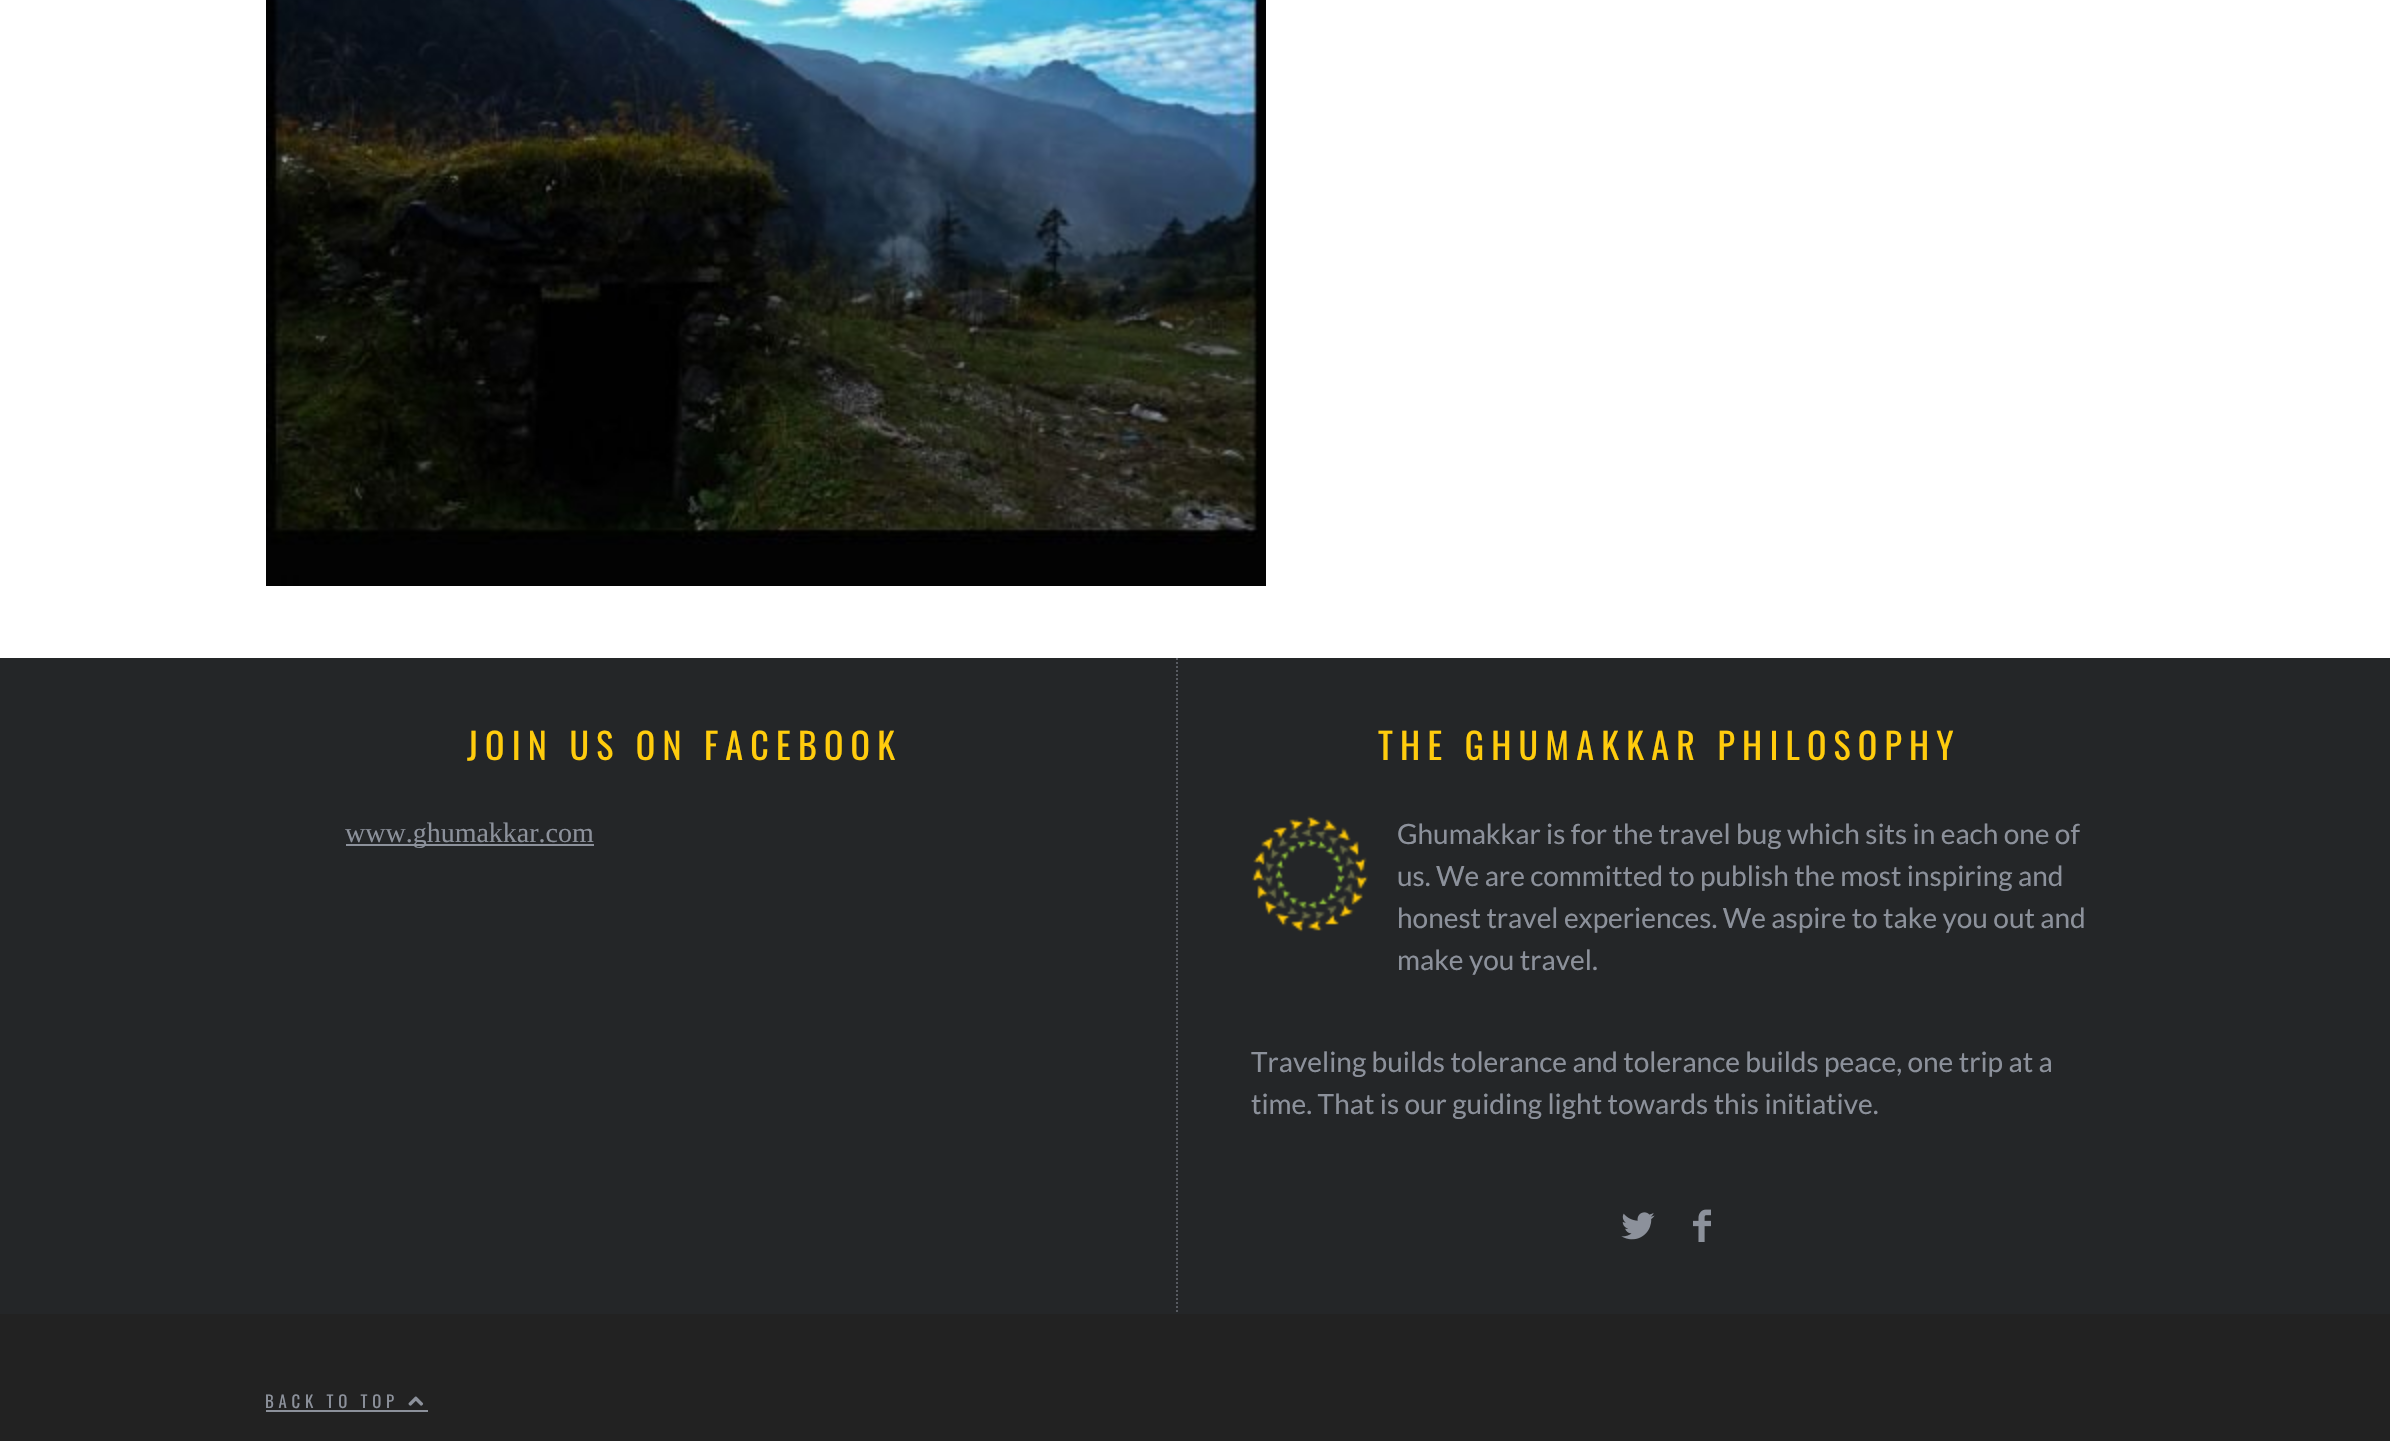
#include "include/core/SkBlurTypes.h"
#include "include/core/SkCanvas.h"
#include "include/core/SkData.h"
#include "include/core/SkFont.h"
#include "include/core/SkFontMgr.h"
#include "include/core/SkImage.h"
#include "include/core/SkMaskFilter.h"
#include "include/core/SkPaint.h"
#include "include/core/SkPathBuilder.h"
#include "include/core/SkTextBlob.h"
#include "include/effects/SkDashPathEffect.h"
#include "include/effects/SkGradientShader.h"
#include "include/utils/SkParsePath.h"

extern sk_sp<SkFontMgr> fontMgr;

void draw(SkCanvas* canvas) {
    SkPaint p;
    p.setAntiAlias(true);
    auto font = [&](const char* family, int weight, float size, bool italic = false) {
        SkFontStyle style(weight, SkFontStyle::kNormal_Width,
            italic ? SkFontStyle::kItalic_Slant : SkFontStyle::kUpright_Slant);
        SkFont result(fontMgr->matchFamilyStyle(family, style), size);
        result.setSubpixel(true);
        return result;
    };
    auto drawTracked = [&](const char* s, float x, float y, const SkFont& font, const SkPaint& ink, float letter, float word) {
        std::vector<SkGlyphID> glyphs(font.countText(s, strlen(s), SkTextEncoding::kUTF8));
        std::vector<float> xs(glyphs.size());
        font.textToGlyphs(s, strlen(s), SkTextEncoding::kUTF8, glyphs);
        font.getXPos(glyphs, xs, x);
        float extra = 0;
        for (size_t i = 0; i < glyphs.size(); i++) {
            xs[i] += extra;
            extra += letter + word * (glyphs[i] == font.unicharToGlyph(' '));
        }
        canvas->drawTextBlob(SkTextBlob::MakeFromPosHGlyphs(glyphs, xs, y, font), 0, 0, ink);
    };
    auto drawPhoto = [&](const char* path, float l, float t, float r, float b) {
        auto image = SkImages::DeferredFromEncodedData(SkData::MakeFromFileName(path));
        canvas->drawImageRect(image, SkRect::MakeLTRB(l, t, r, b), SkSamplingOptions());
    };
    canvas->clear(0xFFFFFFFF);
    drawPhoto("media/1.png", 266, 0, 1266, 586);
    p.setColor(0xFF242628);
    canvas->drawRect(SkRect::MakeLTRB(0, 658, 2390, 1314), p);
    auto font1 = font("Oswald", 400, 36);
    p.setColor(0xFFFFCC0D);
    drawTracked("JOIN US ON FACEBOOK", 467, 760, font1, p, 7.2f, 0);
    p.setColor(0xFF8C919B);
    canvas->drawRect(SkRect::MakeLTRB(346, 844, 594, 846), p);
    auto font2 = font("Liberation Serif", 400, 28);
    canvas->drawString("www.ghumakkar.com", 345, 842, font2, p);
    canvas->save();
    canvas->clipRect(SkRect::MakeLTRB(266, 658, 2126, 1314));
    p.setStyle(SkPaint::kStroke_Style);
    p.setStrokeWidth(2);
    p.setColor(0xFF585B61);
    p.setPathEffect(SkDashPathEffect::Make({{2, 2}}, 0));
    canvas->drawPath(SkPathBuilder().moveTo(1177, 658).lineTo(1177, 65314).detach(), p);
    p.setPathEffect(nullptr);
    canvas->restore();
    p.setStyle(SkPaint::kFill_Style);
    p.setColor(0xFFFFCC0D);
    drawTracked("THE GHUMAKKAR PHILOSOPHY", 1378, 760, font1, p, 7.2f, 0);
    drawPhoto("media/2.png", 1252, 816, 1368, 932);
    auto font3 = font("Lato", 400, 28);
    p.setColor(0xFF8C919B);
    {
        const struct { const char* s; float x, y; } items[] = {
            {"Ghumakkar is for the travel bug which sits in each one of", 1397, 844},
            {"us. We are committed to publish the most inspiring and", 1397, 886},
            {"honest travel experiences. We aspire to take you out and", 1397, 928},
            {"make you travel.", 1397, 970},
            {"Traveling builds tolerance and tolerance builds peace, one trip at a", 1251, 1072},
            {"time. That is our guiding light towards this initiative.", 1251, 1114},
        };
        for (auto [s, x, y] : items) {
            canvas->drawString(s, x, y, font3, p);
        }
    }
    drawPhoto("media/3.png", 1621, 1212, 1655, 1240);
    drawPhoto("media/4.png", 1693, 1209, 1711, 1242);
    p.setColor(0xFF222222);
    canvas->drawRect(SkRect::MakeLTRB(0, 1314, 2390, 1441), p);
    auto font4 = font("Oswald", 400, 16.75f);
    p.setColor(0xFF8C919B);
    drawTracked("BACK TO TOP", 265, 1408, font4, p, 4.75f, 0);
    canvas->drawRect(SkRect::MakeLTRB(266, 1410, 428, 1412), p);
    drawPhoto("media/5.png", 408, 1396, 424, 1406);
}
